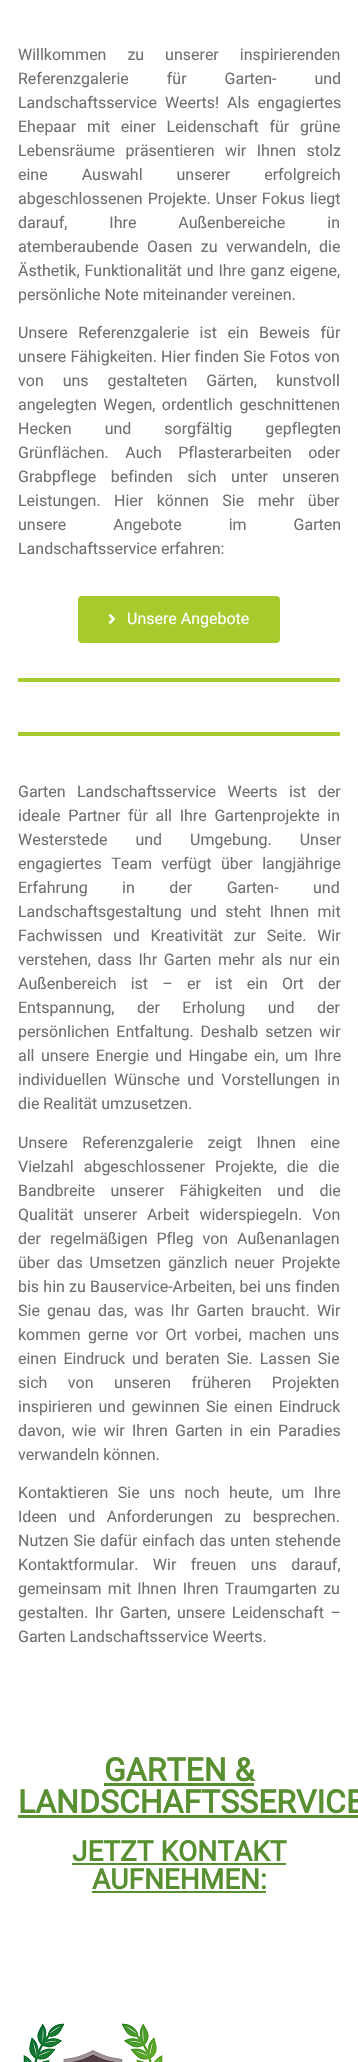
#include "include/core/SkBlurTypes.h"
#include "include/core/SkCanvas.h"
#include "include/core/SkData.h"
#include "include/core/SkFont.h"
#include "include/core/SkFontMgr.h"
#include "include/core/SkImage.h"
#include "include/core/SkMaskFilter.h"
#include "include/core/SkPaint.h"
#include "include/core/SkPathBuilder.h"
#include "include/core/SkTextBlob.h"
#include "include/effects/SkDashPathEffect.h"
#include "include/effects/SkGradientShader.h"
#include "include/utils/SkParsePath.h"

extern sk_sp<SkFontMgr> fontMgr;

void draw(SkCanvas* canvas) {
    SkPaint p;
    p.setAntiAlias(true);
    auto font = [&](const char* family, int weight, float size, bool italic = false) {
        SkFontStyle style(weight, SkFontStyle::kNormal_Width,
            italic ? SkFontStyle::kItalic_Slant : SkFontStyle::kUpright_Slant);
        SkFont result(fontMgr->matchFamilyStyle(family, style), size);
        result.setSubpixel(true);
        return result;
    };
    auto drawTracked = [&](const char* s, float x, float y, const SkFont& font, const SkPaint& ink, float letter, float word) {
        std::vector<SkGlyphID> glyphs(font.countText(s, strlen(s), SkTextEncoding::kUTF8));
        std::vector<float> xs(glyphs.size());
        font.textToGlyphs(s, strlen(s), SkTextEncoding::kUTF8, glyphs);
        font.getXPos(glyphs, xs, x);
        float extra = 0;
        for (size_t i = 0; i < glyphs.size(); i++) {
            xs[i] += extra;
            extra += letter + word * (glyphs[i] == font.unicharToGlyph(' '));
        }
        canvas->drawTextBlob(SkTextBlob::MakeFromPosHGlyphs(glyphs, xs, y, font), 0, 0, ink);
    };
    auto drawPhoto = [&](const char* path, float l, float t, float r, float b) {
        auto image = SkImages::DeferredFromEncodedData(SkData::MakeFromFileName(path));
        canvas->drawImageRect(image, SkRect::MakeLTRB(l, t, r, b), SkSamplingOptions());
    };
    canvas->clear(0xFFFFFFFF);
    auto font1 = font("Roboto", 400, 16);
    p.setColor(0xFF707070);
    drawTracked("Willkommen zu unserer inspirierenden", 18, 60, font1, p, 0, 17);
    drawTracked("Referenzgalerie für Garten- und", 18, 84, font1, p, 0, 34);
    drawTracked("Landschaftsservice Weerts! Als engagiertes", 18, 108, font1, p, 0, 4);
    drawTracked("Ehepaar mit einer Leidenschaft für grüne", 18, 132, font1, p, 0, 6.75f);
    drawTracked("Lebensräume präsentieren wir Ihnen stolz", 18, 156, font1, p, 0, 6.5f);
    drawTracked("eine Auswahl unserer erfolgreich", 18, 180, font1, p, 0, 30);
    drawTracked("abgeschlossenen Projekte. Unser Fokus liegt", 18, 204, font1, p, 0, 1);
    drawTracked("darauf, Ihre Außenbereiche in", 18, 228, font1, p, 0, 38);
    drawTracked("atemberaubende Oasen zu verwandeln, die", 18, 252, font1, p, 0, 4.5f);
    drawTracked("Ästhetik, Funktionalität und Ihre ganz eigene,", 18, 276, font1, p, 0, 1);
    canvas->drawString("persönliche Note miteinander vereinen.", 18, 300, font1, p);
    drawTracked("Unsere Referenzgalerie ist ein Beweis für", 18, 338, font1, p, 0, 6.5f);
    drawTracked("unsere Fähigkeiten. Hier finden Sie Fotos von", 18, 362, font1, p, 0, 0.25f);
    drawTracked("von uns gestalteten Gärten, kunstvoll", 18, 386, font1, p, 0, 15);
    drawTracked("angelegten Wegen, ordentlich geschnittenen", 18, 410, font1, p, 0, 2.5f);
    drawTracked("Hecken und sorgfältig gepflegten", 18, 434, font1, p, 0, 29);
    drawTracked("Grünflächen. Auch Pflasterarbeiten oder", 18, 458, font1, p, 0, 12.5f);
    drawTracked("Grabpflege befinden sich unter unseren", 18, 482, font1, p, 0, 10.5f);
    drawTracked("Leistungen. Hier können Sie mehr über", 18, 506, font1, p, 0, 9.5f);
    drawTracked("unsere Angebote im Garten", 18, 530, font1, p, 0, 43);
    canvas->drawString("Landschaftsservice erfahren:", 18, 554, font1, p);
    p.setColor(0xFFA7CA2D);
    canvas->drawRoundRect(SkRect::MakeLTRB(78, 596, 280, 643), 4, 4, p);
    drawPhoto("media/1.png", 108, 614, 116, 624);
    p.setColor(0xFFFFFFFF);
    canvas->drawString("Unsere Angebote", 127, 624, font1, p);
    p.setColor(0xFFA7CA2D);
    canvas->drawRect(SkRect::MakeLTRB(18, 678, 340, 682), p);
    canvas->drawRect(SkRect::MakeLTRB(18, 732, 340, 736), p);
    p.setColor(0xFF707070);
    drawTracked("Garten Landschaftsservice Weerts ist der", 18, 797, font1, p, 0, 7.5f);
    drawTracked("ideale Partner für all Ihre Gartenprojekte in", 18, 821, font1, p, 0, 3.75f);
    drawTracked("Westerstede und Umgebung. Unser", 18, 845, font1, p, 0, 24);
    drawTracked("engagiertes Team verfügt über langjährige", 18, 869, font1, p, 0, 5.5f);
    drawTracked("Erfahrung in der Garten- und", 18, 893, font1, p, 0, 30.5f);
    drawTracked("Landschaftsgestaltung und steht Ihnen mit", 18, 917, font1, p, 0, 4.5f);
    drawTracked("Fachwissen und Kreativität zur Seite. Wir", 18, 941, font1, p, 0, 6.75f);
    drawTracked("verstehen, dass Ihr Garten mehr als nur ein", 18, 965, font1, p, 0, 2.75f);
    drawTracked("Außenbereich ist – er ist ein Ort der", 18, 989, font1, p, 0, 10.25f);
    drawTracked("Entspannung, der Erholung und der", 18, 1013, font1, p, 0, 18.5f);
    drawTracked("persönlichen Entfaltung. Deshalb setzen wir", 18, 1037, font1, p, 0, 3);
    drawTracked("all unsere Energie und Hingabe ein, um Ihre", 18, 1061, font1, p, 0, 2.5f);
    drawTracked("individuellen Wünsche und Vorstellungen in", 18, 1085, font1, p, 0, 3.5f);
    canvas->drawString("die Realität umzusetzen.", 18, 1109, font1, p);
    drawTracked("Unsere Referenzgalerie zeigt Ihnen eine", 18, 1148, font1, p, 0, 10.5f);
    drawTracked("Vielzahl abgeschlossener Projekte, die die", 18, 1172, font1, p, 0, 6);
    drawTracked("Bandbreite unserer Fähigkeiten und die", 18, 1196, font1, p, 0, 11.5f);
    drawTracked("Qualität unserer Arbeit widerspiegeln. Von", 18, 1220, font1, p, 0, 6);
    drawTracked("der regelmäßigen Pfleg von Außenanlagen", 18, 1244, font1, p, 0, 5);
    drawTracked("über das Umsetzen gänzlich neuer Projekte", 18, 1268, font1, p, 0, 3);
    drawTracked("bis hin zu Bauservice-Arbeiten, bei uns finden", 18, 1292, font1, p, 0, 0.25f);
    drawTracked("Sie genau das, was Ihr Garten braucht. Wir", 18, 1316, font1, p, 0, 3.25f);
    drawTracked("kommen gerne vor Ort vorbei, machen uns", 18, 1340, font1, p, 0, 3.5f);
    drawTracked("einen Eindruck und beraten Sie. Lassen Sie", 18, 1364, font1, p, 0, 3);
    drawTracked("sich von unseren früheren Projekten", 18, 1388, font1, p, 0, 16.5f);
    drawTracked("inspirieren und gewinnen Sie einen Eindruck", 18, 1412, font1, p, 0, 2.25f);
    drawTracked("davon, wie wir Ihren Garten in ein Paradies", 18, 1436, font1, p, 0, 3.25f);
    canvas->drawString("verwandeln können.", 18, 1460, font1, p);
    drawTracked("Kontaktieren Sie uns noch heute, um Ihre", 18, 1498, font1, p, 0, 5.5f);
    drawTracked("Ideen und Anforderungen zu besprechen.", 18, 1522, font1, p, 0, 7.5f);
    drawTracked("Nutzen Sie dafür einfach das unten stehende", 18, 1546, font1, p, 0, 0.75f);
    drawTracked("Kontaktformular. Wir freuen uns darauf,", 18, 1570, font1, p, 0, 10.5f);
    drawTracked("gemeinsam mit Ihnen Ihren Traumgarten zu", 18, 1594, font1, p, 0, 2.25f);
    drawTracked("gestalten. Ihr Garten, unsere Leidenschaft –", 18, 1618, font1, p, 0, 2.5f);
    canvas->drawString("Garten Landschaftsservice Weerts.", 18, 1642, font1, p);
    auto font2 = font("Roboto", 700, 32);
    p.setColor(0xFF588F30);
    canvas->drawString("GARTEN &", 104, 1781, font2, p);
    canvas->drawRect(SkRect::MakeLTRB(104, 1783, 254, 1786), p);
    canvas->drawString("LANDSCHAFTSSERVICE", 18, 1813, font2, p);
    canvas->drawRect(SkRect::MakeLTRB(18, 1815, 358, 1818), p);
    auto font3 = font("Roboto", 700, 28);
    canvas->drawString("JETZT KONTAKT", 72, 1861, font3, p);
    canvas->drawRect(SkRect::MakeLTRB(72, 1863, 286, 1865), p);
    canvas->drawString("AUFNEHMEN:", 92, 1889, font3, p);
    canvas->drawRect(SkRect::MakeLTRB(92, 1891, 266, 1893), p);
    drawPhoto("media/2.png", 23, 2023, 163, 2062);
}
